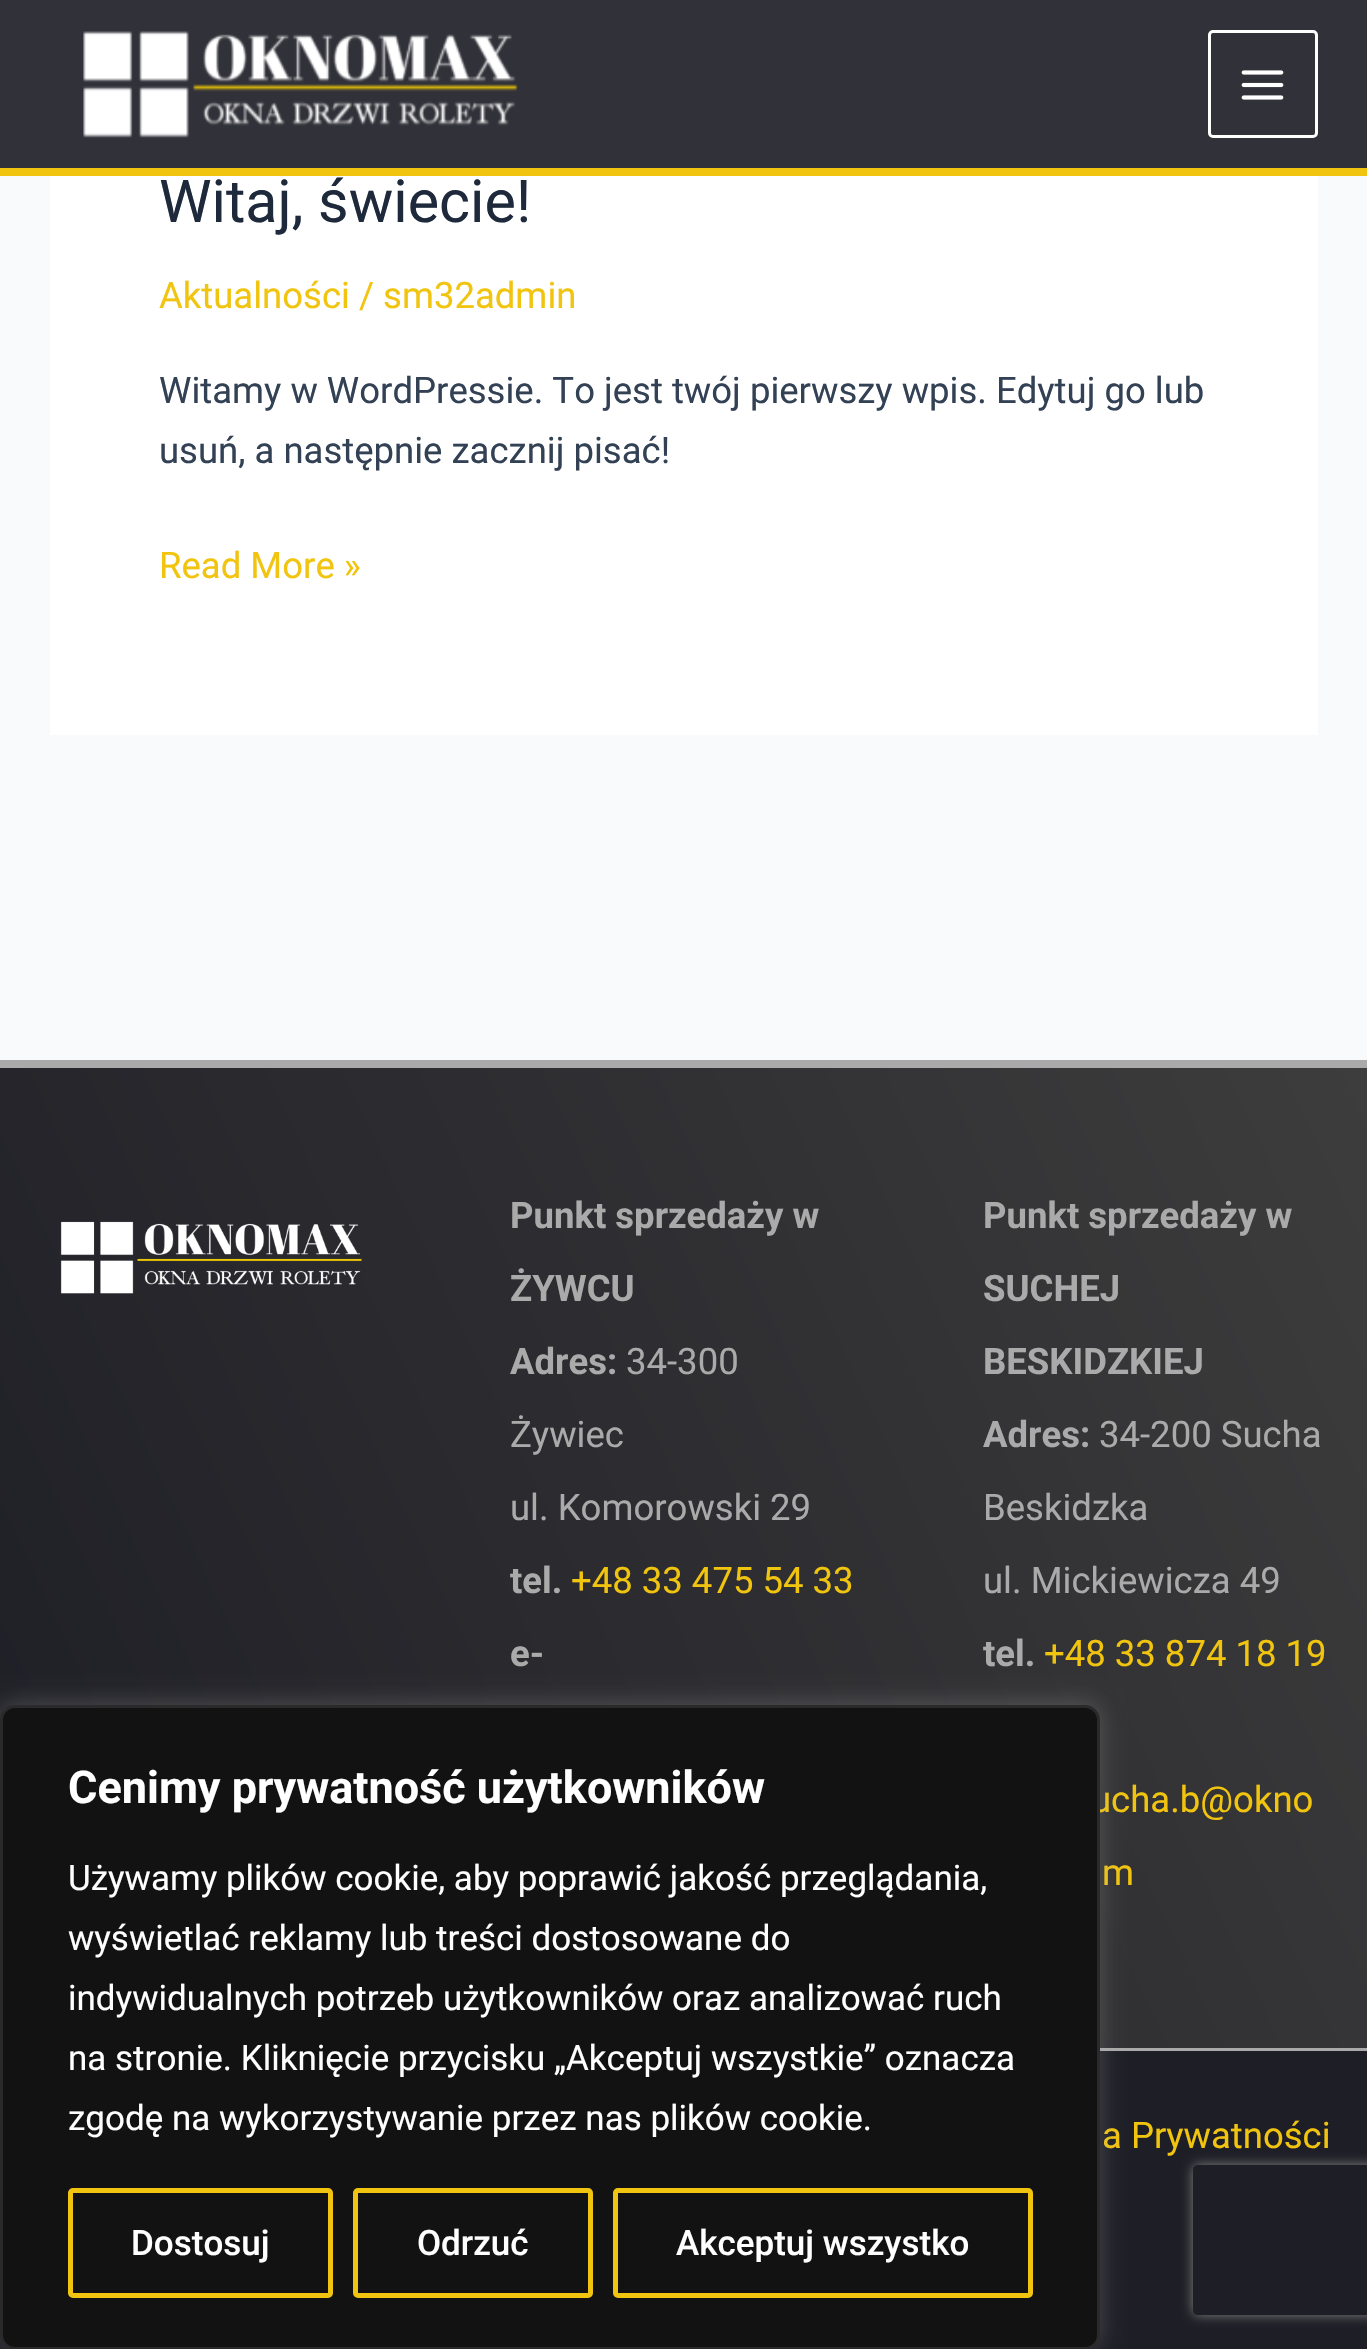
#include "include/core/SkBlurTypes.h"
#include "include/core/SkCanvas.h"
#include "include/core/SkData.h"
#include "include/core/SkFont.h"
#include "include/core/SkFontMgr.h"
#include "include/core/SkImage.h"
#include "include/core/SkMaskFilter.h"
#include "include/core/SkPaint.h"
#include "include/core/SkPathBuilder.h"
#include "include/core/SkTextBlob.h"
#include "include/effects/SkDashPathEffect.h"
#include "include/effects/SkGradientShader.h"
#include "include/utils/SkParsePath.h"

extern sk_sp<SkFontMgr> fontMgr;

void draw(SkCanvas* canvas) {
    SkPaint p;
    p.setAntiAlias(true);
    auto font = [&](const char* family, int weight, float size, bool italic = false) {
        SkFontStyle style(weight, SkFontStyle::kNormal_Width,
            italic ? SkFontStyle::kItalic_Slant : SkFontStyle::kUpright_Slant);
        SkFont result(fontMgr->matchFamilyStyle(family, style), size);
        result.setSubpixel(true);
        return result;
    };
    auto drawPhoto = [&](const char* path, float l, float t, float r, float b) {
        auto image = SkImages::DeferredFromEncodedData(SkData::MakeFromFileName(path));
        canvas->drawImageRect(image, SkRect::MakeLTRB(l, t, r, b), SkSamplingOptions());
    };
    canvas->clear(0xFFF9FAFB);
    p.setColor(0xFF313139);
    canvas->drawRect(SkRect::MakeLTRB(0, 0, 1367, 168), p);
    p.setColor(0xFFF1C40F);
    canvas->drawRect(SkRect::MakeLTRB(0, 168, 1367, 176), p);
    drawPhoto("media/1.png", 83, 31, 518, 138);
    p.setStyle(SkPaint::kStroke_Style);
    p.setStrokeWidth(3);
    p.setColor(0xFFFFFFFF);
    canvas->drawRoundRect(SkRect::MakeLTRB(1209.5f, 31.5f, 1316.5f, 136.5f), 3.5f, 3.5f, p);
    drawPhoto("media/2.png", 1241, 70, 1284, 100);
    p.setStyle(SkPaint::kFill_Style);
    canvas->drawRect(SkRect::MakeLTRB(50, 176, 1318, 735), p);
    auto font1 = font("Roboto", 400, 59.25f);
    p.setColor(0xFF1E293B);
    canvas->drawString("Witaj, świecie!", 159, 222, font1, p);
    auto font2 = font("Roboto", 400, 36.5f);
    p.setColor(0xFFF1C40F);
    canvas->drawString("Aktualności / sm32admin", 159, 308, font2, p);
    p.setColor(0xFF334155);
    canvas->drawString("Witamy w WordPressie. To jest twój pierwszy wpis. Edytuj go lub", 159, 403, font2, p);
    canvas->drawString("usuń, a następnie zacznij pisać!", 159, 463, font2, p);
    p.setColor(0xFFF1C40F);
    canvas->drawString("Read More »", 159, 578, font2, p);
    {
        const SkColor colors[] = {0xFF1D1D25, 0xFF3D3D3D};
        const float stops[] = {0, 1};
        const SkPoint ends[] = {{-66, 1907}, {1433, 1208}};
        p.setShader(SkGradientShader::MakeLinear(ends, colors, stops, 2, SkTileMode::kClamp));
        p.setAlpha(255);
    }
    canvas->drawRect(SkRect::MakeLTRB(0, 1068, 1367, 2048), p);
    p.setShader(nullptr);
    p.setColor(0xFFAAAAAA);
    canvas->drawRect(SkRect::MakeLTRB(0, 1060, 1367, 1068), p);
    drawPhoto("media/3.png", 60, 1221, 362, 1294);
    auto font3 = font("Roboto", 700, 36.5f);
    {
        const struct { const char* s; float x, y; } items[] = {
            {"Punkt sprzedaży w", 510, 1228},
            {"ŻYWCU", 510, 1301},
            {"Adres:", 510, 1374},
        };
        for (auto [s, x, y] : items) {
            canvas->drawString(s, x, y, font3, p);
        }
    }
    {
        const struct { const char* s; float x, y; } items[] = {
            {"34-300", 626, 1374},
            {"Żywiec", 510, 1447},
            {"ul. Komorowski 29", 510, 1520},
        };
        for (auto [s, x, y] : items) {
            canvas->drawString(s, x, y, font2, p);
        }
    }
    canvas->drawString("tel.", 510, 1593, font3, p);
    p.setColor(0xFFF1C40F);
    canvas->drawString("+48 33 475 54 33", 571, 1593, font2, p);
    p.setColor(0xFFAAAAAA);
    {
        const struct { const char* s; float x, y; } items[] = {
            {"e-", 510, 1666},
            {"Punkt sprzedaży w", 983, 1228},
            {"SUCHEJ", 983, 1301},
            {"BESKIDZKIEJ", 983, 1374},
            {"Adres:", 983, 1447},
        };
        for (auto [s, x, y] : items) {
            canvas->drawString(s, x, y, font3, p);
        }
    }
    {
        const struct { const char* s; float x, y; } items[] = {
            {"34-200 Sucha", 1099, 1447},
            {"Beskidzka", 983, 1520},
            {"ul. Mickiewicza 49", 983, 1593},
        };
        for (auto [s, x, y] : items) {
            canvas->drawString(s, x, y, font2, p);
        }
    }
    canvas->drawString("tel.", 983, 1666, font3, p);
    p.setColor(0xFFF1C40F);
    {
        const struct { const char* s; float x, y; } items[] = {
            {"+48 33 874 18 19", 1044, 1666},
            {"ucha.b@okno", 1091, 1812},
            {"m", 1102, 1885},
        };
        for (auto [s, x, y] : items) {
            canvas->drawString(s, x, y, font2, p);
        }
    }
    p.setColor(0xFF1E1E26);
    canvas->drawRect(SkRect::MakeLTRB(0, 2051, 1367, 2349), p);
    p.setColor(0xFFAAAAAA);
    canvas->drawRect(SkRect::MakeLTRB(1100, 2048, 1367, 2051), p);
    p.setColor(0xFFF1C40F);
    canvas->drawString("a Prywatności", 1102, 2148, font2, p);
    p.setColor(0x4DACABAB);
    p.setMaskFilter(SkMaskFilter::MakeBlur(kNormal_SkBlurStyle, 12.5f));
    canvas->drawRoundRect(SkRect::MakeLTRB(0, 1703, 1100, 2348), 15, 15, p);
    p.setMaskFilter(nullptr);
    p.setColor(0xFF121212);
    canvas->drawRoundRect(SkRect::MakeLTRB(1.5f, 1706.5f, 1098.5f, 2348.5f), 13.5f, 13.5f, p);
    p.setStyle(SkPaint::kStroke_Style);
    p.setColor(0xFF2A2A2A);
    canvas->drawRoundRect(SkRect::MakeLTRB(1.5f, 1706.5f, 1098.5f, 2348.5f), 13.5f, 13.5f, p);
    auto font4 = font("Roboto", 700, 45);
    p.setStyle(SkPaint::kFill_Style);
    p.setColor(0xFFFFFFFF);
    canvas->drawString("Cenimy prywatność użytkowników", 68, 1803, font4, p);
    auto font5 = font("Roboto", 400, 35);
    {
        const struct { const char* s; float x, y; } items[] = {
            {"Używamy plików cookie, aby poprawić jakość przeglądania,", 68, 1890},
            {"wyświetlać reklamy lub treści dostosowane do", 68, 1950},
            {"indywidualnych potrzeb użytkowników oraz analizować ruch", 68, 2010},
            {"na stronie. Kliknięcie przycisku „Akceptuj wszystkie” oznacza", 68, 2070},
            {"zgodę na wykorzystywanie przez nas plików cookie.", 68, 2130},
        };
        for (auto [s, x, y] : items) {
            canvas->drawString(s, x, y, font5, p);
        }
    }
    p.setStyle(SkPaint::kStroke_Style);
    p.setStrokeWidth(5);
    p.setColor(0xFFF1C40F);
    canvas->drawRoundRect(SkRect::MakeLTRB(70.5f, 2190.5f, 330.5f, 2295.5f), 2.5f, 2.5f, p);
    auto font6 = font("Roboto", 500, 35);
    p.setStyle(SkPaint::kFill_Style);
    p.setColor(0xFFFFFFFF);
    canvas->drawString("Dostosuj", 131, 2255, font6, p);
    p.setStyle(SkPaint::kStroke_Style);
    p.setColor(0xFFF1C40F);
    canvas->drawRoundRect(SkRect::MakeLTRB(355.5f, 2190.5f, 590.5f, 2295.5f), 2.5f, 2.5f, p);
    p.setStyle(SkPaint::kFill_Style);
    p.setColor(0xFFFFFFFF);
    canvas->drawString("Odrzuć", 417, 2255, font6, p);
    p.setStyle(SkPaint::kStroke_Style);
    p.setColor(0xFFF1C40F);
    canvas->drawRoundRect(SkRect::MakeLTRB(615.5f, 2190.5f, 1030.5f, 2295.5f), 2.5f, 2.5f, p);
    p.setStyle(SkPaint::kFill_Style);
    p.setColor(0xFFFFFFFF);
    canvas->drawString("Akceptuj wszystko", 676, 2255, font6, p);
    canvas->save();
    canvas->clipPath(SkPathBuilder(SkPathFillType::kEvenOdd).moveTo(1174, 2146).lineTo(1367, 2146).lineTo(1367, 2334).lineTo(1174, 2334).close().moveTo(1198, 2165).lineTo(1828, 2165).cubicTo(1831, 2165, 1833, 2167, 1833, 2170).lineTo(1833, 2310).cubicTo(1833, 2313, 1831, 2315, 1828, 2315).lineTo(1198, 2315).cubicTo(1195, 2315, 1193, 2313, 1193, 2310).lineTo(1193, 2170).cubicTo(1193, 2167, 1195, 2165, 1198, 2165).close().detach(), true);
    p.setColor(0xFF808080);
    p.setMaskFilter(SkMaskFilter::MakeBlur(kNormal_SkBlurStyle, 6));
    canvas->drawRoundRect(SkRect::MakeLTRB(1193, 2165, 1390, 2315), 5, 5, p);
    p.setMaskFilter(nullptr);
    canvas->restore();
}
